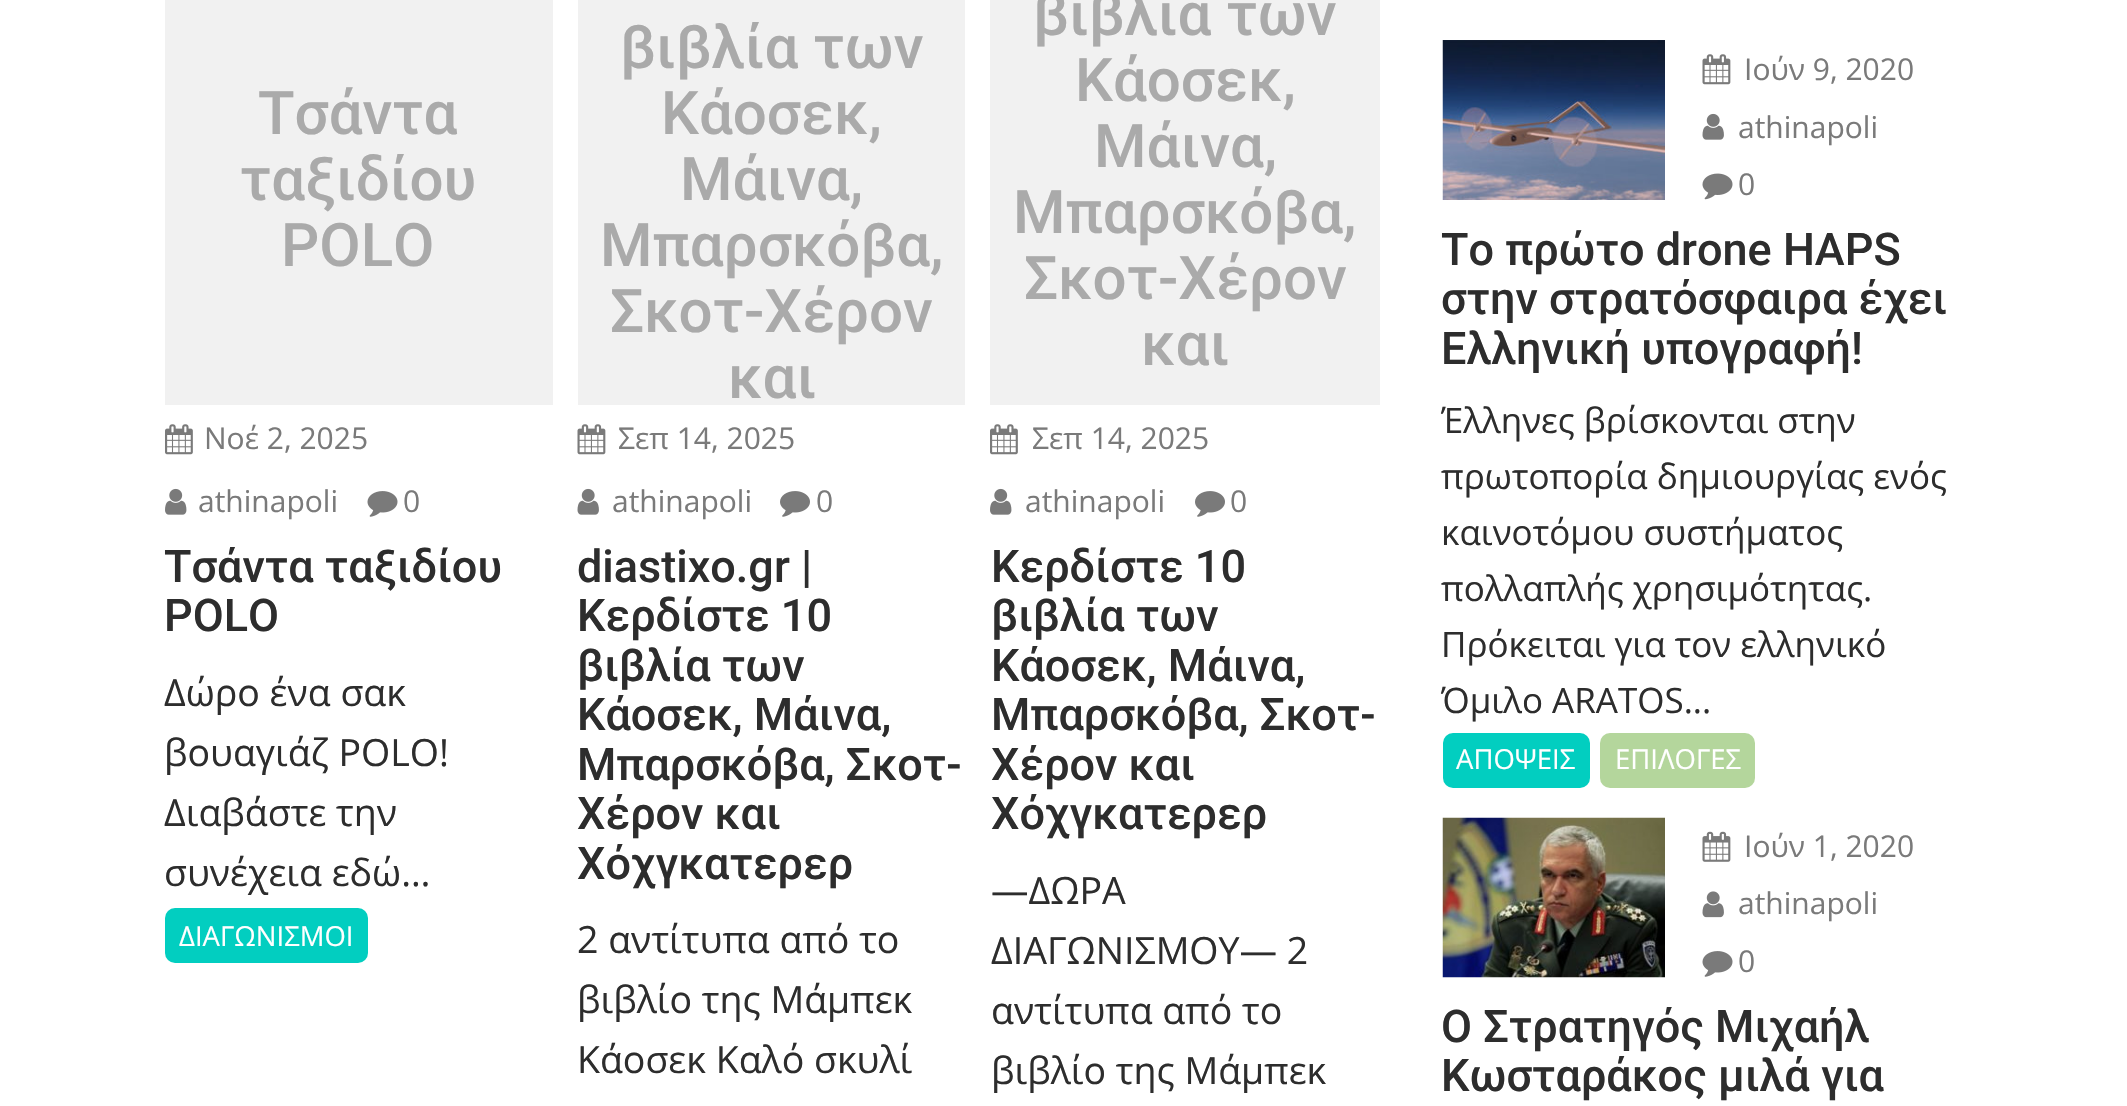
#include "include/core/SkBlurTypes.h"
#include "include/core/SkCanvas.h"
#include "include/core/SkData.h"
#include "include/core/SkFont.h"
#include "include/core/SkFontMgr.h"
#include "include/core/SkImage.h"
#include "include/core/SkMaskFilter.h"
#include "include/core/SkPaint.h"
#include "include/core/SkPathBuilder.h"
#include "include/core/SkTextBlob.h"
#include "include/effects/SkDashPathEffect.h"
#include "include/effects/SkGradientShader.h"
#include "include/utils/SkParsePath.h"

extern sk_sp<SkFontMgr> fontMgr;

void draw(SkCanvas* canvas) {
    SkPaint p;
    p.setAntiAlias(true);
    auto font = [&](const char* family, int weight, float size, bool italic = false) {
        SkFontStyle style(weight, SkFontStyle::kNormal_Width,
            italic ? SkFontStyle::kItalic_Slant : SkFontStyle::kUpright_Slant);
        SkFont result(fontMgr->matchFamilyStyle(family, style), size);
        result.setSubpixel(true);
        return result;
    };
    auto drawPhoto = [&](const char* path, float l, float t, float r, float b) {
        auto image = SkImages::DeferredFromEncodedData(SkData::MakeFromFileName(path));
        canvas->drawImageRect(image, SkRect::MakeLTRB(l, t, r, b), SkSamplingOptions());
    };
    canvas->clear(0xFFFFFFFF);
    p.setColor(0xFFF1F1F1);
    canvas->drawRect(SkRect::MakeLTRB(165, 0, 553, 405), p);
    auto font1 = font("Roboto", 500, 60);
    p.setColor(0xFFAAAAAA);
    {
        const struct { const char* s; float x, y; } items[] = {
            {"Τσάντα", 258, 134},
            {"ταξιδίου", 240, 200},
            {"POLO", 281, 266},
        };
        for (auto [s, x, y] : items) {
            canvas->drawString(s, x, y, font1, p);
        }
    }
    drawPhoto("media/1.png", 165, 424, 193, 455);
    auto font2 = font("Open Sans", 400, 30);
    p.setColor(0xFF7A7A7A);
    canvas->drawString("Νοέ 2, 2025", 204, 449, font2, p);
    drawPhoto("media/2.png", 165, 488, 187, 515);
    canvas->drawString("athinapoli", 198, 512, font2, p);
    drawPhoto("media/3.png", 367, 491, 398, 517);
    canvas->drawString("0", 403, 512, font2, p);
    auto font3 = font("Roboto", 500, 45);
    p.setColor(0xFF2D2D2D);
    canvas->drawString("Τσάντα ταξιδίου", 164, 582, font3, p);
    canvas->drawString("POLO", 164, 631, font3, p);
    auto font4 = font("Open Sans", 400, 37.5f);
    {
        const struct { const char* s; float x, y; } items[] = {
            {"Δώρο ένα σακ", 164, 706},
            {"βουαγιάζ POLO!", 164, 766},
            {"Διαβάστε την", 164, 826},
            {"συνέχεια εδώ…", 164, 886},
        };
        for (auto [s, x, y] : items) {
            canvas->drawString(s, x, y, font4, p);
        }
    }
    p.setColor(0xFF02CEC0);
    canvas->drawRoundRect(SkRect::MakeLTRB(165, 908, 368, 963), 10, 10, p);
    auto font5 = font("Open Sans", 400, 27.5f);
    p.setColor(0xFFFFFFFF);
    canvas->drawString("ΔΙΑΓΩΝΙΣΜΟΙ", 179, 946, font5, p);
    p.setColor(0xFFF1F1F1);
    canvas->drawRect(SkRect::MakeLTRB(578, 0, 965, 405), p);
    p.setColor(0xFFAAAAAA);
    {
        const struct { const char* s; float x, y; } items[] = {
            {"βιβλία των", 620, 68},
            {"Κάοσεκ,", 661, 134},
            {"Μάινα,", 680, 200},
            {"Μπαρσκόβα,", 600, 266},
            {"Σκοτ-Χέρον", 610, 332},
            {"και", 728, 398},
        };
        for (auto [s, x, y] : items) {
            canvas->drawString(s, x, y, font1, p);
        }
    }
    drawPhoto("media/4.png", 577, 424, 606, 455);
    p.setColor(0xFF7A7A7A);
    canvas->drawString("Σεπ 14, 2025", 618, 449, font2, p);
    drawPhoto("media/5.png", 577, 488, 599, 515);
    canvas->drawString("athinapoli", 612, 512, font2, p);
    drawPhoto("media/6.png", 780, 491, 810, 517);
    canvas->drawString("0", 816, 512, font2, p);
    p.setColor(0xFF2D2D2D);
    {
        const struct { const char* s; float x, y; } items[] = {
            {"diastixo.gr |", 577, 582},
            {"Κερδίστε 10", 577, 631},
            {"βιβλία των", 577, 681},
            {"Κάοσεκ, Μάινα,", 577, 730},
            {"Μπαρσκόβα, Σκοτ-", 577, 780},
            {"Χέρον και", 577, 829},
            {"Χόχγκατερερ", 577, 879},
        };
        for (auto [s, x, y] : items) {
            canvas->drawString(s, x, y, font3, p);
        }
    }
    {
        const struct { const char* s; float x, y; } items[] = {
            {"2 αντίτυπα από το", 577, 953},
            {"βιβλίο της Μάμπεκ", 577, 1013},
            {"Κάοσεκ Καλό σκυλί", 577, 1073},
        };
        for (auto [s, x, y] : items) {
            canvas->drawString(s, x, y, font4, p);
        }
    }
    p.setColor(0xFFF1F1F1);
    canvas->drawRect(SkRect::MakeLTRB(990, 0, 1380, 405), p);
    p.setColor(0xFFAAAAAA);
    {
        const struct { const char* s; float x, y; } items[] = {
            {"βιβλία των", 1033, 35},
            {"Κάοσεκ,", 1075, 101},
            {"Μάινα,", 1094, 167},
            {"Μπαρσκόβα,", 1013, 233},
            {"Σκοτ-Χέρον", 1024, 299},
            {"και", 1141, 365},
        };
        for (auto [s, x, y] : items) {
            canvas->drawString(s, x, y, font1, p);
        }
    }
    drawPhoto("media/1.png", 990, 424, 1018, 455);
    p.setColor(0xFF7A7A7A);
    canvas->drawString("Σεπ 14, 2025", 1032, 449, font2, p);
    drawPhoto("media/2.png", 990, 488, 1012, 515);
    canvas->drawString("athinapoli", 1025, 512, font2, p);
    drawPhoto("media/6.png", 1195, 491, 1225, 517);
    canvas->drawString("0", 1230, 512, font2, p);
    p.setColor(0xFF2D2D2D);
    {
        const struct { const char* s; float x, y; } items[] = {
            {"Κερδίστε 10", 991, 582},
            {"βιβλία των", 991, 631},
            {"Κάοσεκ, Μάινα,", 991, 681},
            {"Μπαρσκόβα, Σκοτ-", 991, 730},
            {"Χέρον και", 991, 780},
            {"Χόχγκατερερ", 991, 829},
        };
        for (auto [s, x, y] : items) {
            canvas->drawString(s, x, y, font3, p);
        }
    }
    {
        const struct { const char* s; float x, y; } items[] = {
            {"—ΔΩΡΑ", 991, 904},
            {"ΔΙΑΓΩΝΙΣΜΟΥ— 2", 991, 964},
            {"αντίτυπα από το", 991, 1024},
            {"βιβλίο της Μάμπεκ", 991, 1084},
        };
        for (auto [s, x, y] : items) {
            canvas->drawString(s, x, y, font4, p);
        }
    }
    drawPhoto("media/7.png", 1442, 40, 1665, 200);
    drawPhoto("media/4.png", 1702, 54, 1731, 85);
    p.setColor(0xFF7A7A7A);
    canvas->drawString("Ιούν 9, 2020", 1744, 80, font2, p);
    drawPhoto("media/5.png", 1702, 113, 1724, 140);
    canvas->drawString("athinapoli", 1738, 138, font2, p);
    drawPhoto("media/8.png", 1702, 173, 1733, 200);
    canvas->drawString("0", 1738, 195, font2, p);
    p.setColor(0xFF2D2D2D);
    {
        const struct { const char* s; float x, y; } items[] = {
            {"Το πρώτο drone HAPS", 1441, 265},
            {"στην στρατόσφαιρα έχει", 1441, 314},
            {"Ελληνική υπογραφή!", 1441, 364},
        };
        for (auto [s, x, y] : items) {
            canvas->drawString(s, x, y, font3, p);
        }
    }
    auto font6 = font("Open Sans", 400, 35);
    {
        const struct { const char* s; float x, y; } items[] = {
            {"Έλληνες βρίσκονται στην", 1441, 433},
            {"πρωτοπορία δημιουργίας ενός", 1441, 489},
            {"καινοτόμου συστήματος", 1441, 545},
            {"πολλαπλής χρησιμότητας.", 1441, 601},
            {"Πρόκειται για τον ελληνικό", 1441, 657},
            {"Όμιλο ARATOS...", 1441, 713},
        };
        for (auto [s, x, y] : items) {
            canvas->drawString(s, x, y, font6, p);
        }
    }
    p.setColor(0xFF02CEC0);
    canvas->drawRoundRect(SkRect::MakeLTRB(1443, 733, 1590, 788), 10, 10, p);
    p.setColor(0xFFFFFFFF);
    canvas->drawString("ΑΠΟΨΕΙΣ", 1456, 769, font5, p);
    p.setColor(0xFFB4D69C);
    canvas->drawRoundRect(SkRect::MakeLTRB(1600, 733, 1755, 788), 10, 10, p);
    p.setColor(0xFFFFFFFF);
    canvas->drawString("ΕΠΙΛΟΓΕΣ", 1615, 769, font5, p);
    drawPhoto("media/9.png", 1442, 817, 1665, 978);
    drawPhoto("media/10.png", 1702, 831, 1731, 862);
    p.setColor(0xFF7A7A7A);
    canvas->drawString("Ιούν 1, 2020", 1744, 857, font2, p);
    drawPhoto("media/11.png", 1702, 891, 1724, 918);
    canvas->drawString("athinapoli", 1738, 914, font2, p);
    drawPhoto("media/3.png", 1702, 951, 1733, 977);
    canvas->drawString("0", 1738, 972, font2, p);
    p.setColor(0xFF2D2D2D);
    canvas->drawString("Ο Στρατηγός Μιχαήλ", 1441, 1042, font3, p);
    canvas->drawString("Κωσταράκος μιλά για", 1441, 1091, font3, p);
}
